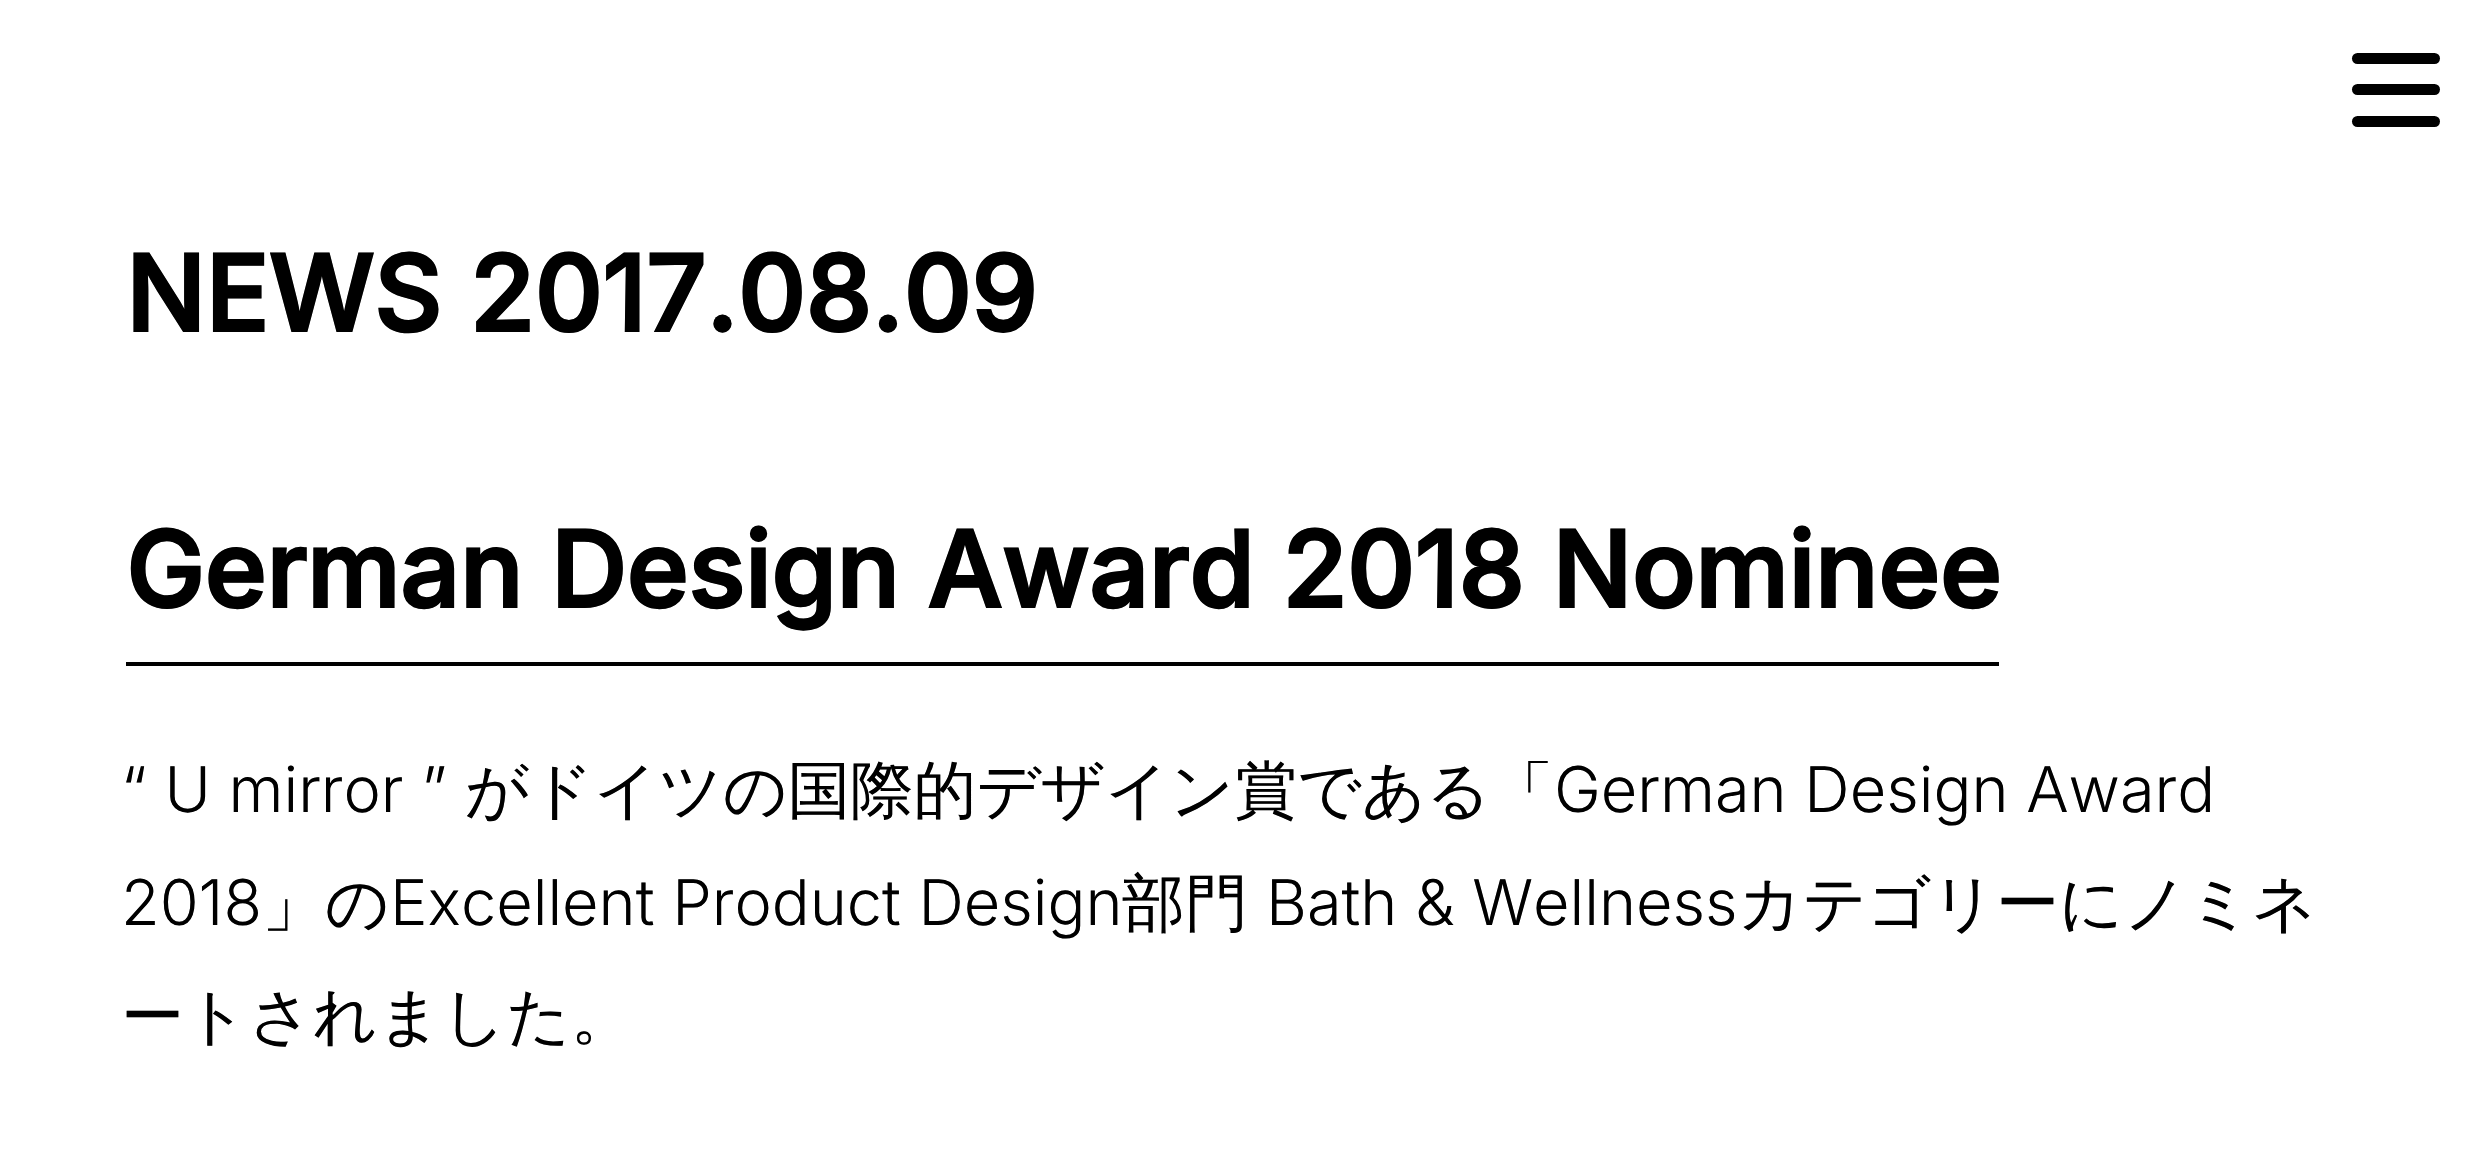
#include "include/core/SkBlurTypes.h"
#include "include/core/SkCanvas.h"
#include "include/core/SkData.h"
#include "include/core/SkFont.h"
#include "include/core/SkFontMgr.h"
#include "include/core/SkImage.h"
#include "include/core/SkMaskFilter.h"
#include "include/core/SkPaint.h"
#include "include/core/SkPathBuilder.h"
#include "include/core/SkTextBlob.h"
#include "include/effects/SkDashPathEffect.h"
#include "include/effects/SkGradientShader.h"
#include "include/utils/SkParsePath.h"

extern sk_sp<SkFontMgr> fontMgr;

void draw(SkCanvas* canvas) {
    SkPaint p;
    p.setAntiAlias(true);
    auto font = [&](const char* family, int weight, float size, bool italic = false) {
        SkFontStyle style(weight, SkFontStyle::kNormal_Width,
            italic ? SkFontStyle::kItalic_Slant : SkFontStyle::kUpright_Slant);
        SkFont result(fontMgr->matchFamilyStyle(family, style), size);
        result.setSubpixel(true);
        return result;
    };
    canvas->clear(0xFFFFFFFF);
    p.setColor(0xFF000000);
    canvas->drawRoundRect(SkRect::MakeLTRB(2352, 53, 2440, 64), 5.5f, 5.5f, p);
    canvas->drawRoundRect(SkRect::MakeLTRB(2352, 84, 2440, 95), 5.5f, 5.5f, p);
    canvas->drawRoundRect(SkRect::MakeLTRB(2352, 116, 2440, 127), 5.5f, 5.5f, p);
    auto font1 = font("Inter", 700, 105);
    canvas->drawString("NEWS 2017.08.09", 125, 332, font1, p);
    canvas->drawString("German Design Award 2018 Nominee", 125, 608, font1, p);
    canvas->drawRect(SkRect::MakeLTRB(126, 662, 1999, 666), p);
    auto font2 = font("Inter", 300, 63);
    canvas->drawString("“ U mirror ”", 121, 812, font2, p);
    auto font3 = font("WenQuanYi Zen Hei", 500, 63);
    canvas->drawString("がドイツの国際的デザイン賞である「", 465, 812, font3, p);
    canvas->drawString("German Design Award", 1554, 812, font2, p);
    canvas->drawString("2018", 121, 925, font2, p);
    canvas->drawString("」の", 262, 925, font3, p);
    canvas->drawString("Excellent Product Design", 390, 925, font2, p);
    canvas->drawString("部門", 1122, 925, font3, p);
    canvas->drawString("Bath & Wellness", 1266, 925, font2, p);
    canvas->drawString("カテゴリーにノミネ", 1738, 925, font3, p);
    canvas->drawString("ートされました。", 121, 1038, font3, p);
}
